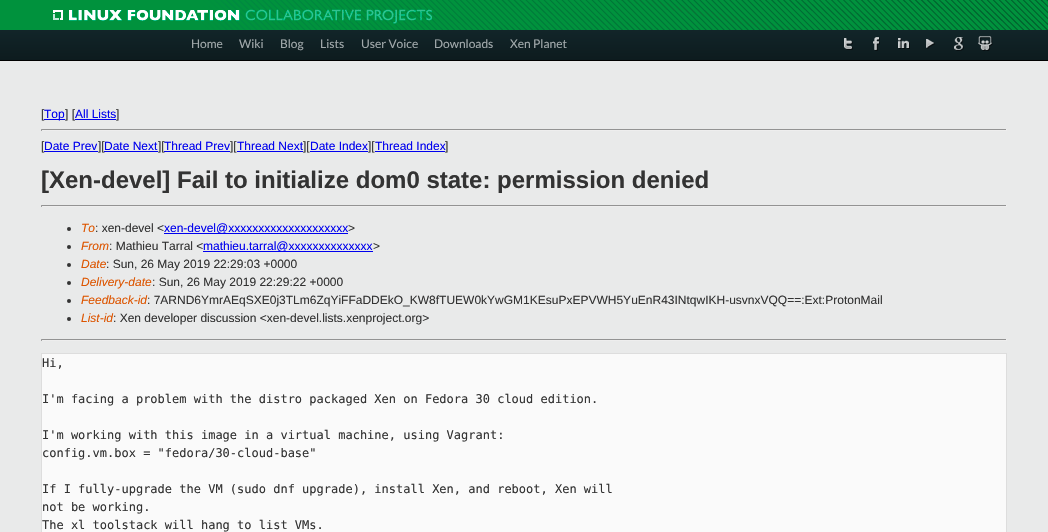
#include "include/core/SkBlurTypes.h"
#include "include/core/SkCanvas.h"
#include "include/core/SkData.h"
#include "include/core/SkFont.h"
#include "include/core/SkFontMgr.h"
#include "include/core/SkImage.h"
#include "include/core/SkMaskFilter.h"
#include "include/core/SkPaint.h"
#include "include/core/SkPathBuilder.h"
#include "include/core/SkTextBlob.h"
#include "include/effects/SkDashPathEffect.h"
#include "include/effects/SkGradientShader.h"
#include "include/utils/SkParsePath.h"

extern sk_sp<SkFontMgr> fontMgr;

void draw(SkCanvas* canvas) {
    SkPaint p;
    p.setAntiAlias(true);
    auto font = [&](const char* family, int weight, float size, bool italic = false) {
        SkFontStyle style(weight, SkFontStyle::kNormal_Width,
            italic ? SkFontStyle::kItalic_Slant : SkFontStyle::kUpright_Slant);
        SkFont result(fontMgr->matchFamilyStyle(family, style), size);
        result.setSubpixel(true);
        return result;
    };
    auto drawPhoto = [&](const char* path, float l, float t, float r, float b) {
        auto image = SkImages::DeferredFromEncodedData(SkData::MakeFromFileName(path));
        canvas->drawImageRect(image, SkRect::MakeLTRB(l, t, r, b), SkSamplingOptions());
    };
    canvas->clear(0xFFE9EAEA);
    drawPhoto("media/1.png", 0, 0, 1048, 30);
    drawPhoto("media/2.png", 53, 9, 432, 24);
    {
        const SkColor colors[] = {0xFF122529, 0xFF0D1B1E};
        const float stops[] = {0, 1};
        const SkPoint ends[] = {{524, 30}, {524, 60}};
        p.setShader(SkGradientShader::MakeLinear(ends, colors, stops, 2, SkTileMode::kClamp));
        p.setAlpha(255);
    }
    canvas->drawRect(SkRect::MakeLTRB(0, 30, 1048, 60), p);
    p.setShader(nullptr);
    p.setColor(0xFF000000);
    canvas->drawRect(SkRect::MakeLTRB(0, 60, 1048, 61), p);
    auto font1 = font("Lato", 400, 12);
    p.setColor(0xFFA1A9AB);
    {
        const struct { const char* s; float x, y; } items[] = {
            {"Home", 191, 48},
            {"Wiki", 239, 48},
            {"Blog", 280, 48},
            {"Lists", 320, 48},
            {"User Voice", 361, 48},
            {"Downloads", 434, 48},
            {"Xen Planet", 510, 48},
        };
        for (auto [s, x, y] : items) {
            canvas->drawString(s, x, y, font1, p);
        }
    }
    drawPhoto("media/3.png", 844, 38, 853, 50);
    drawPhoto("media/4.png", 873, 37, 880, 51);
    drawPhoto("media/5.png", 898, 38, 910, 49);
    drawPhoto("media/6.png", 926, 39, 935, 49);
    drawPhoto("media/7.png", 954, 37, 964, 51);
    drawPhoto("media/8.png", 978, 36, 993, 51);
    auto font2 = font("Liberation Sans", 400, 12);
    p.setColor(0xFF333333);
    canvas->drawString("[", 41, 118, font2, p);
    p.setColor(0xFF0000EE);
    canvas->drawRect(SkRect::MakeLTRB(44, 119, 65, 120), p);
    canvas->drawString("Top", 44, 118, font2, p);
    p.setColor(0xFF333333);
    canvas->drawString("] [", 65, 118, font2, p);
    p.setColor(0xFF0000EE);
    canvas->drawString("All Lists", 75, 118, font2, p);
    p.setColor(0xFF333333);
    canvas->drawString("]", 116, 118, font2, p);
    {
        const struct { float l, t, r, b; SkColor color; } items[] = {
            {75, 119, 116, 120, 0xFF0000EE},
            {41, 129, 1007, 130, 0xFF939393},
            {1006, 129, 1007, 131, 0xFFEEEEEE},
            {41, 130, 1007, 131, 0xFFEEEEEE},
            {41, 129, 42, 131, 0xFF9F9F9F},
        };
        for (auto [l, t, r, b, color] : items) {
            p.setColor(color);
            canvas->drawRect(SkRect::MakeLTRB(l, t, r, b), p);
        }
    }
    p.setColor(0xFF333333);
    canvas->drawString("[", 41, 150, font2, p);
    p.setColor(0xFF0000EE);
    canvas->drawString("Date Prev", 44, 150, font2, p);
    canvas->drawRect(SkRect::MakeLTRB(44, 151, 98, 152), p);
    p.setColor(0xFF333333);
    canvas->drawString("][", 98, 150, font2, p);
    p.setColor(0xFF0000EE);
    canvas->drawString("Date Next", 104, 150, font2, p);
    canvas->drawRect(SkRect::MakeLTRB(104, 151, 158, 152), p);
    p.setColor(0xFF333333);
    canvas->drawString("][", 158, 150, font2, p);
    p.setColor(0xFF0000EE);
    canvas->drawString("Thread Prev", 164, 150, font2, p);
    canvas->drawRect(SkRect::MakeLTRB(164, 151, 230, 152), p);
    p.setColor(0xFF333333);
    canvas->drawString("][", 230, 150, font2, p);
    p.setColor(0xFF0000EE);
    canvas->drawString("Thread Next", 237, 150, font2, p);
    canvas->drawRect(SkRect::MakeLTRB(237, 151, 303, 152), p);
    p.setColor(0xFF333333);
    canvas->drawString("][", 303, 150, font2, p);
    p.setColor(0xFF0000EE);
    canvas->drawString("Date Index", 310, 150, font2, p);
    canvas->drawRect(SkRect::MakeLTRB(310, 151, 368, 152), p);
    p.setColor(0xFF333333);
    canvas->drawString("][", 368, 150, font2, p);
    p.setColor(0xFF0000EE);
    canvas->drawString("Thread Index", 375, 150, font2, p);
    canvas->drawRect(SkRect::MakeLTRB(375, 151, 445, 152), p);
    p.setColor(0xFF333333);
    canvas->drawString("]", 445, 150, font2, p);
    auto font3 = font("Liberation Sans", 700, 24);
    canvas->drawString("[Xen-devel] Fail to initialize dom0 state: permission denied", 41, 188, font3, p);
    {
        const struct { float l, t, r, b; SkColor color; } items[] = {
            {41, 205, 1007, 206, 0xFF939393},
            {1006, 205, 1007, 207, 0xFFEEEEEE},
            {41, 206, 1007, 207, 0xFFEEEEEE},
            {41, 205, 42, 207, 0xFF9F9F9F},
        };
        for (auto [l, t, r, b, color] : items) {
            p.setColor(color);
            canvas->drawRect(SkRect::MakeLTRB(l, t, r, b), p);
        }
    }
    p.setColor(0xFF333333);
    canvas->drawCircle(69, 229, 2, p);
    auto font4 = font("Liberation Sans", 400, 12, true);
    p.setColor(0xFFDD5500);
    canvas->drawString("To", 81, 232, font4, p);
    p.setColor(0xFF333333);
    canvas->drawString(": xen-devel <", 95, 232, font2, p);
    p.setColor(0xFF0000EE);
    canvas->drawRect(SkRect::MakeLTRB(164, 233, 348, 234), p);
    canvas->drawString("xen-devel@xxxxxxxxxxxxxxxxxxxx", 164, 232, font2, p);
    p.setColor(0xFF333333);
    canvas->drawString(">", 348, 232, font2, p);
    canvas->drawCircle(69, 247, 2, p);
    p.setColor(0xFFDD5500);
    canvas->drawString("From", 81, 250, font4, p);
    p.setColor(0xFF333333);
    canvas->drawString(": Mathieu Tarral <", 109, 250, font2, p);
    p.setColor(0xFF0000EE);
    canvas->drawRect(SkRect::MakeLTRB(203, 251, 373, 252), p);
    canvas->drawString("mathieu.tarral@xxxxxxxxxxxxxx", 203, 250, font2, p);
    p.setColor(0xFF333333);
    canvas->drawString(">", 373, 250, font2, p);
    canvas->drawCircle(69, 265, 2, p);
    p.setColor(0xFFDD5500);
    canvas->drawString("Date", 81, 268, font4, p);
    p.setColor(0xFF333333);
    canvas->drawString(": Sun, 26 May 2019 22:29:03 +0000", 106, 268, font2, p);
    canvas->drawCircle(69, 283, 2, p);
    p.setColor(0xFFDD5500);
    canvas->drawString("Delivery-date", 81, 286, font4, p);
    p.setColor(0xFF333333);
    canvas->drawString(": Sun, 26 May 2019 22:29:22 +0000", 152, 286, font2, p);
    canvas->drawCircle(69, 301, 2, p);
    p.setColor(0xFFDD5500);
    canvas->drawString("Feedback-id", 81, 304, font4, p);
    p.setColor(0xFF333333);
    canvas->drawString(": 7ARND6YmrAEqSXE0j3TLm6ZqYiFFaDDEkO_KW8fTUEW0kYwGM1KEsuPxEPVWH5YuEnR43INtqwIKH-usvnxVQQ==:Ext:ProtonMail", 147, 304, font2, p);
    canvas->drawCircle(69, 319, 2, p);
    p.setColor(0xFFDD5500);
    canvas->drawString("List-id", 81, 322, font4, p);
    p.setColor(0xFF333333);
    canvas->drawString(": Xen developer discussion <xen-devel.lists.xenproject.org>", 113, 322, font2, p);
    {
        const struct { float l, t, r, b; SkColor color; } items[] = {
            {41, 339, 1007, 340, 0xFF939393},
            {1006, 339, 1007, 341, 0xFFEEEEEE},
            {41, 340, 1007, 341, 0xFFEEEEEE},
            {41, 339, 42, 341, 0xFF9F9F9F},
        };
        for (auto [l, t, r, b, color] : items) {
            p.setColor(color);
            canvas->drawRect(SkRect::MakeLTRB(l, t, r, b), p);
        }
    }
    p.setColor(0xFFFAFAFA);
    canvas->drawRect(SkRect::MakeLTRB(41.5f, 353.5f, 1006.5f, 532.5f), p);
    p.setStyle(SkPaint::kStroke_Style);
    p.setStrokeWidth(1);
    p.setColor(0xFFDDDDDD);
    canvas->drawRect(SkRect::MakeLTRB(41.5f, 353.5f, 1006.5f, 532.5f), p);
    auto font5 = font("DejaVu Sans Mono", 400, 12);
    p.setStyle(SkPaint::kFill_Style);
    p.setColor(0xFF333333);
    {
        const struct { const char* s; float x, y; } items[] = {
            {"Hi,", 42, 367},
            {"I'm facing a problem with the distro packaged Xen on Fedora 30 cloud edition.", 42, 403},
            {"I'm working with this image in a virtual machine, using Vagrant:", 42, 439},
            {"config.vm.box = \"fedora/30-cloud-base\"", 42, 457},
            {"If I fully-upgrade the VM (sudo dnf upgrade), install Xen, and reboot, Xen will", 42, 493},
            {"not be working.", 42, 511},
            {"The xl toolstack will hang to list VMs.", 42, 529},
        };
        for (auto [s, x, y] : items) {
            canvas->drawString(s, x, y, font5, p);
        }
    }
}
